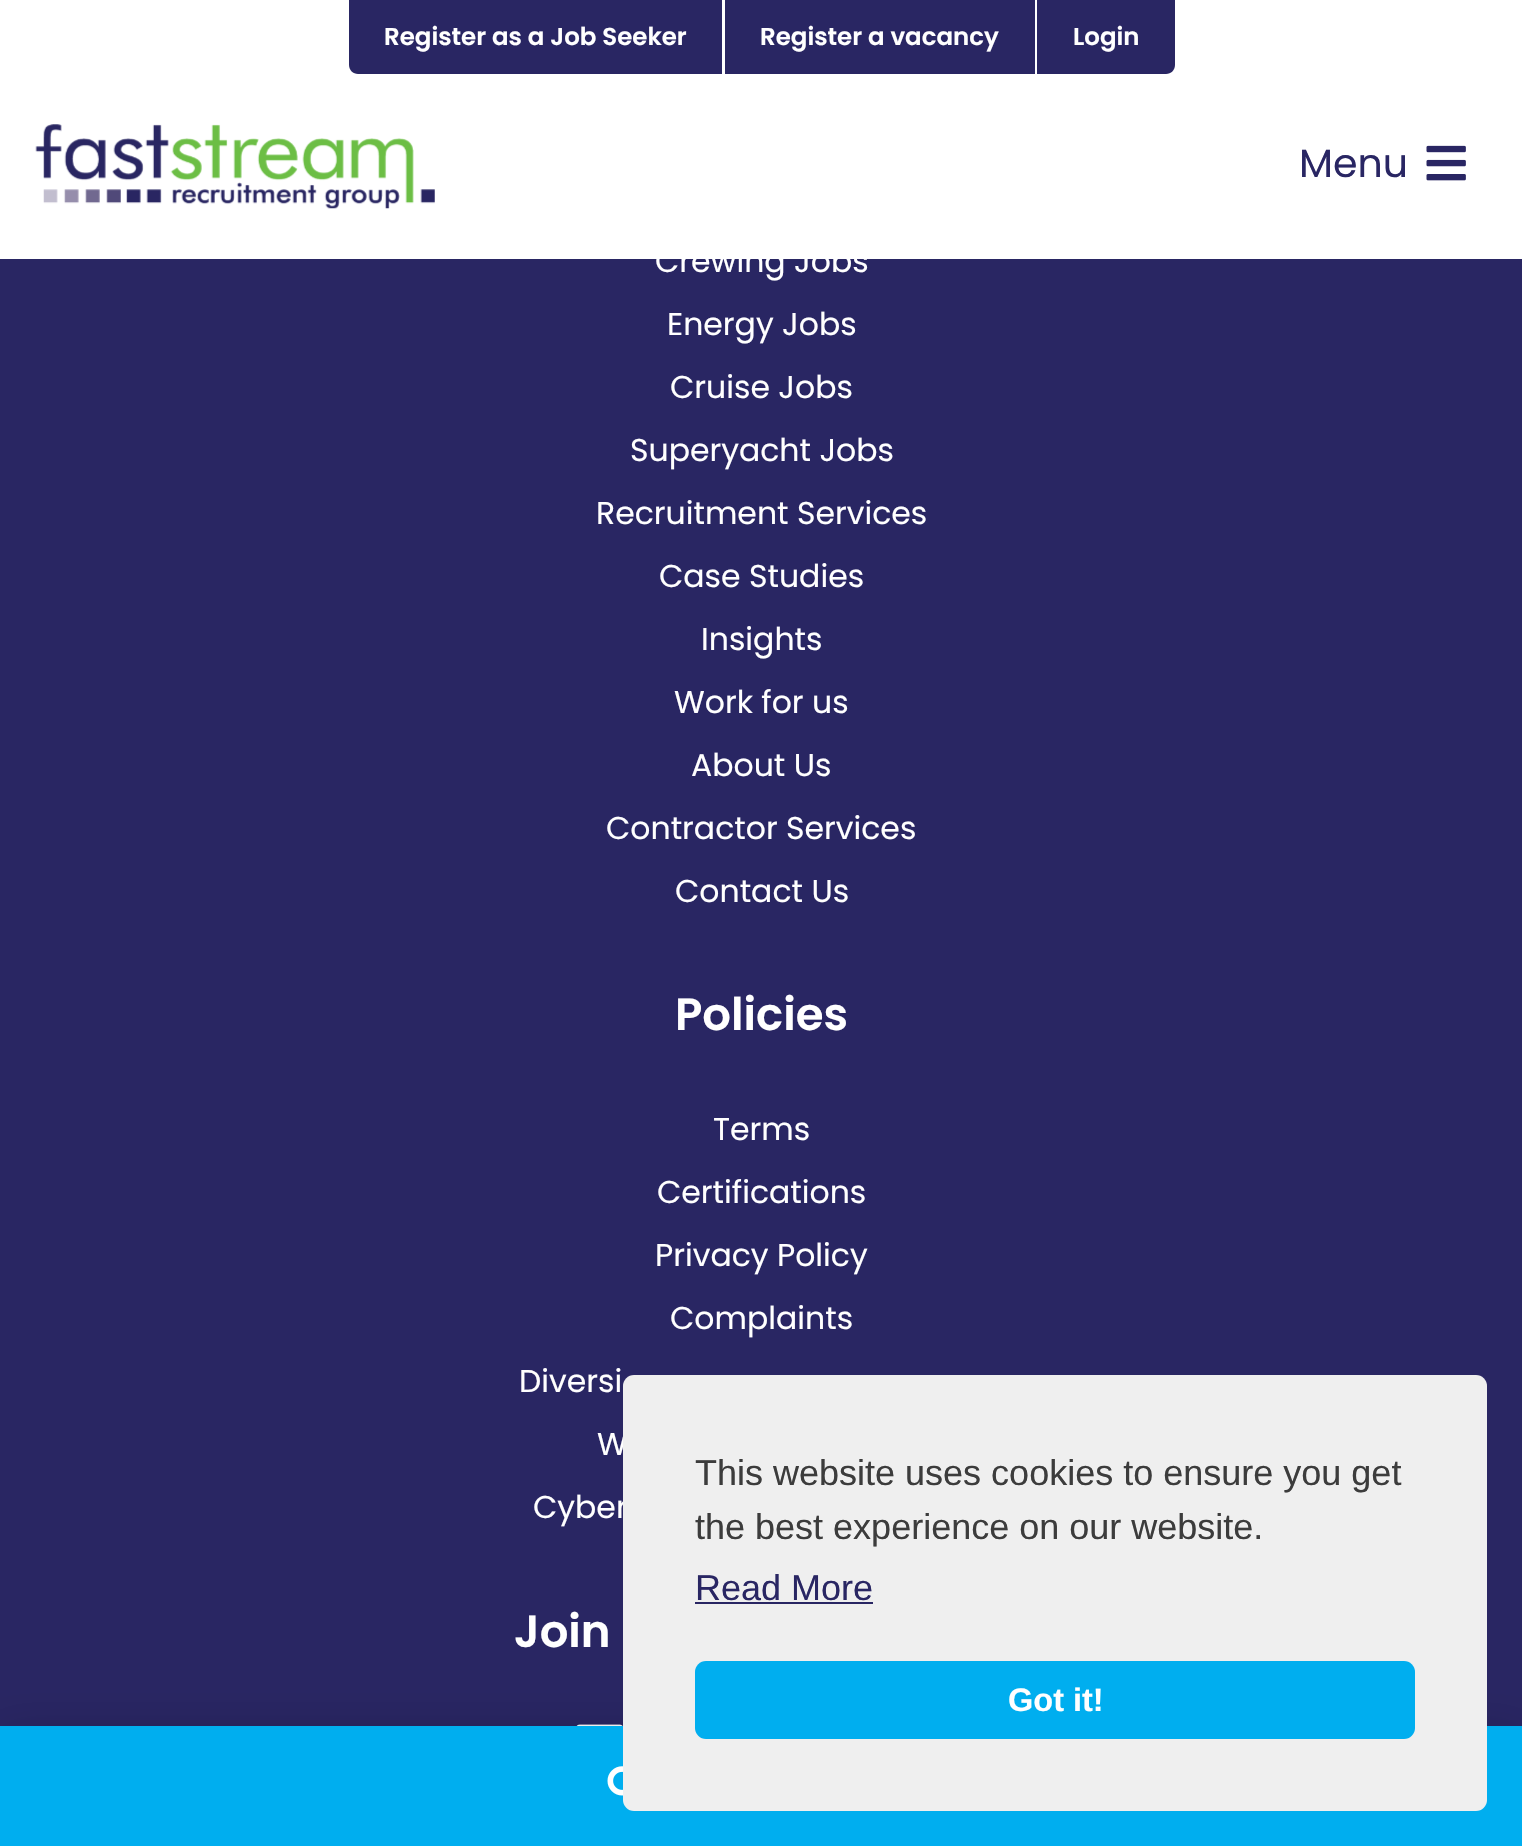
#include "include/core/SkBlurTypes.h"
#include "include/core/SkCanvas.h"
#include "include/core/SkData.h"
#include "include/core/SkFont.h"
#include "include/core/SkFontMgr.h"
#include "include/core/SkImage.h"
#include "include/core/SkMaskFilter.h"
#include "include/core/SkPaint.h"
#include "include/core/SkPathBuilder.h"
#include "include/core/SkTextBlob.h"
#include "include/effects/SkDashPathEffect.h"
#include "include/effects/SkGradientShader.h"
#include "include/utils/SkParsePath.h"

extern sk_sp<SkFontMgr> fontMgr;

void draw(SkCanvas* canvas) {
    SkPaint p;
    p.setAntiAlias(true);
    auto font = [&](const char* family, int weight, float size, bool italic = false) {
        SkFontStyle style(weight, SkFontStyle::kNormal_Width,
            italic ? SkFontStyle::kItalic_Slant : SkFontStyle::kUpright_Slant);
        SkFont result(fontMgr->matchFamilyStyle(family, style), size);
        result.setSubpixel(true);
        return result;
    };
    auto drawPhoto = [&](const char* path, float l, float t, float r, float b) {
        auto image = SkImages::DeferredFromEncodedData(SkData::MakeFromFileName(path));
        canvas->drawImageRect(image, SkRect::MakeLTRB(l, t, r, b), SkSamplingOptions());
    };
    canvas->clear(0xFF292663);
    p.setColor(0xFFFFFFFF);
    canvas->drawRect(SkRect::MakeLTRB(0, 0, 1522, 259), p);
    p.setColor(0xFF292663);
    canvas->drawPath(SkPathBuilder().moveTo(349, 0).lineTo(722, 0).lineTo(722, 74).lineTo(358, 74).cubicTo(353, 74, 349, 70, 349, 65).close().detach(), p);
    auto font1 = font("Poppins", 600, 24.5f);
    p.setColor(0xFFFFFFFF);
    canvas->drawString("Register as a Job Seeker", 384, 45, font1, p);
    p.setColor(0xFF292663);
    canvas->drawRect(SkRect::MakeLTRB(725, 0, 1035, 74), p);
    p.setColor(0xFFFFFFFF);
    canvas->drawString("Register a vacancy", 760, 45, font1, p);
    p.setColor(0xFF292663);
    canvas->drawPath(SkPathBuilder().moveTo(1037, 0).lineTo(1175, 0).lineTo(1175, 65).cubicTo(1175, 70, 1171, 74, 1166, 74).lineTo(1037, 74).close().detach(), p);
    p.setColor(0xFFFFFFFF);
    canvas->drawString("Login", 1073, 45, font1, p);
    drawPhoto("media/1.png", 35, 124, 435, 209);
    auto font2 = font("Poppins", 400, 39.5f);
    p.setColor(0xFF292663);
    canvas->drawString("Menu", 1299, 177, font2, p);
    drawPhoto("media/2.png", 1426, 145, 1466, 181);
    auto font3 = font("Poppins", 400, 31.5f);
    p.setColor(0xFFFFFFFF);
    {
        const struct { const char* s; float x, y; } items[] = {
            {"Crewing Jobs", 655, 272},
            {"Energy Jobs", 667, 335},
            {"Cruise Jobs", 670, 398},
            {"Superyacht Jobs", 630, 461},
            {"Recruitment Services", 596, 524},
            {"Case Studies", 659, 587},
            {"Insights", 701, 650},
            {"Work for us", 674, 713},
            {"About Us", 691, 776},
            {"Contractor Services", 606, 839},
            {"Contact Us", 675, 902},
        };
        for (auto [s, x, y] : items) {
            canvas->drawString(s, x, y, font3, p);
        }
    }
    auto font4 = font("Poppins", 600, 45);
    canvas->drawString("Policies", 675, 1030, font4, p);
    {
        const struct { const char* s; float x, y; } items[] = {
            {"Terms", 713, 1140},
            {"Certifications", 657, 1203},
            {"Privacy Policy", 655, 1266},
            {"Complaints", 670, 1329},
            {"Diversi", 519, 1392},
            {"W", 597, 1455},
            {"Cyber", 533, 1518},
        };
        for (auto [s, x, y] : items) {
            canvas->drawString(s, x, y, font3, p);
        }
    }
    canvas->drawString("Join", 514, 1647, font4, p);
    drawPhoto("media/3.png", 576, 1724, 623, 1726);
    p.setColor(0x33000000);
    p.setMaskFilter(SkMaskFilter::MakeBlur(kNormal_SkBlurStyle, 22.5f));
    canvas->drawRect(SkRect::MakeLTRB(0, 1735, 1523, 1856), p);
    p.setMaskFilter(nullptr);
    p.setColor(0xFF00AEEF);
    canvas->drawRect(SkRect::MakeLTRB(0, 1726, 1522, 1846), p);
    drawPhoto("media/4.png", 607, 1766, 623, 1796);
    p.setColor(0xFFEFEFEF);
    canvas->drawRoundRect(SkRect::MakeLTRB(623, 1375, 1487, 1811), 11, 11, p);
    auto font5 = font("Liberation Sans", 400, 36);
    p.setColor(0xFF3C3C3C);
    canvas->drawString("This website uses cookies to ensure you get", 695, 1485, font5, p);
    canvas->drawString("the best experience on our website.", 695, 1539, font5, p);
    p.setColor(0xFF292663);
    canvas->drawString("Read More", 695, 1600, font5, p);
    canvas->drawRect(SkRect::MakeLTRB(695, 1602, 873, 1604), p);
    p.setColor(0xFF00AEEF);
    canvas->drawRoundRect(SkRect::MakeLTRB(695, 1661, 1415, 1739), 11, 11, p);
    auto font6 = font("Liberation Sans", 700, 32.5f);
    p.setColor(0xFFFFFFFF);
    canvas->drawString("Got it!", 1008, 1711, font6, p);
}
